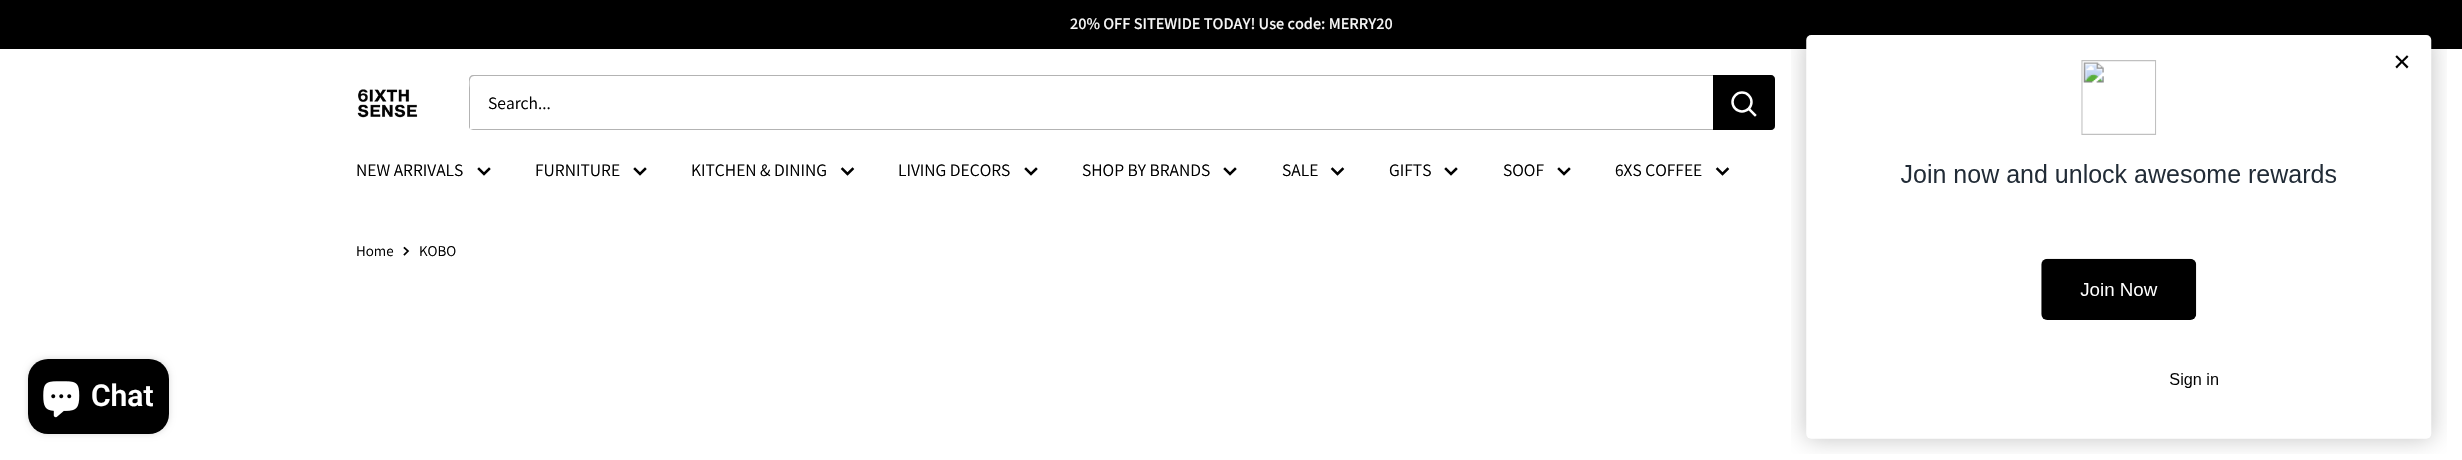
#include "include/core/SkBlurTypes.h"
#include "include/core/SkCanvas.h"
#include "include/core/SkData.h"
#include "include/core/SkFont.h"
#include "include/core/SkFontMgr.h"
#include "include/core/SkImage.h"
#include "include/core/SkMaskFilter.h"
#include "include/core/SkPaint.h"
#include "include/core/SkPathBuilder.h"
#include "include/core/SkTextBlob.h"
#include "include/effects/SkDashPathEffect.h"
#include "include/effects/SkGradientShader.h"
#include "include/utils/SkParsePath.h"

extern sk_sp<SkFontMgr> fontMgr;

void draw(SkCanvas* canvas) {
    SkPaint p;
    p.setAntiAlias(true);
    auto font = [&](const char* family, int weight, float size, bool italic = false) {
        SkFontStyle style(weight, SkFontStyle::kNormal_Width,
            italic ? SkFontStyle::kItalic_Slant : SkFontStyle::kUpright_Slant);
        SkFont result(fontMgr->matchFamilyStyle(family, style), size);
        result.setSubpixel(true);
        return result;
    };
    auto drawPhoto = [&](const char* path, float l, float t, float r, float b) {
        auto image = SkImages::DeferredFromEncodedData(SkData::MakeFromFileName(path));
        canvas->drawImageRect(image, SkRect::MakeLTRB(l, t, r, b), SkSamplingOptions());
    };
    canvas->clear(0xFFFFFFFF);
    p.setColor(0xFF000000);
    canvas->drawRect(SkRect::MakeLTRB(0, 0, 2462, 49), p);
    auto font1 = font("Assistant", 600, 16.25f);
    p.setColor(0xFFF7F7F7);
    canvas->drawString("20% OFF SITEWIDE TODAY! Use code: MERRY20", 1070, 29, font1, p);
    drawPhoto("media/1.png", 357, 89, 418, 118);
    p.setColor(0xFFB3B3B3);
    canvas->drawPath(SkPathBuilder().moveTo(470, 129).lineTo(473, 130).lineTo(1771, 130).cubicTo(1773, 130, 1774, 129, 1775, 128).lineTo(1775, 79).lineTo(1774, 76).lineTo(1774, 117).cubicTo(1774, 120, 1776, 129, 1770, 129).close().detach(), p);
    canvas->drawPath(SkPathBuilder().moveTo(474, 76).lineTo(1772, 76).lineTo(1774, 76).cubicTo(1773, 76, 1772, 75, 1771, 75).lineTo(473, 75).cubicTo(471, 75, 469, 77, 469, 79).lineTo(469, 126).cubicTo(469, 127, 469, 128, 470, 129).lineTo(470, 88).cubicTo(470, 86, 468, 76, 474, 76).close().detach(), p);
    auto font2 = font("Assistant", 400, 17.5f);
    p.setColor(0xFF000000);
    canvas->drawString("Search...", 488, 109, font2, p);
    canvas->drawPath(SkPathBuilder().moveTo(1713, 75).lineTo(1771, 75).cubicTo(1773, 75, 1775, 77, 1775, 79).lineTo(1775, 126).cubicTo(1775, 128, 1773, 130, 1771, 130).lineTo(1713, 130).close().detach(), p);
    p.setStyle(SkPaint::kStroke_Style);
    p.setStrokeWidth(2.5f);
    p.setStrokeCap(SkPaint::kSquare_Cap);
    p.setColor(0xFFFFFFFF);
    canvas->drawPath(SkPathBuilder().moveTo(1755, 115).lineTo(1749, 109).detach(), p);
    p.setStrokeCap(SkPaint::kButt_Cap);
    canvas->drawCircle(1742, 102, 9.5f, p);
    p.setStyle(SkPaint::kFill_Style);
    p.setColor(0xFF000000);
    canvas->drawString("NEW ARRIVALS", 356, 176, font2, p);
    p.setStyle(SkPaint::kStroke_Style);
    p.setStrokeCap(SkPaint::kSquare_Cap);
    canvas->drawPath(SkPathBuilder().moveTo(489, 169).lineTo(484, 174).lineTo(479, 169).detach(), p);
    p.setStyle(SkPaint::kFill_Style);
    canvas->drawString("FURNITURE", 535, 176, font2, p);
    p.setStyle(SkPaint::kStroke_Style);
    canvas->drawPath(SkPathBuilder().moveTo(645, 169).lineTo(640, 174).lineTo(635, 169).detach(), p);
    p.setStyle(SkPaint::kFill_Style);
    canvas->drawString("KITCHEN & DINING", 691, 176, font2, p);
    p.setStyle(SkPaint::kStroke_Style);
    canvas->drawPath(SkPathBuilder().moveTo(852.5f, 169).lineTo(847.5f, 174).lineTo(842.5f, 169).detach(), p);
    p.setStyle(SkPaint::kFill_Style);
    canvas->drawString("LIVING DECORS", 898, 176, font2, p);
    p.setStyle(SkPaint::kStroke_Style);
    canvas->drawPath(SkPathBuilder().moveTo(1036, 169).lineTo(1031, 174).lineTo(1026, 169).detach(), p);
    p.setStyle(SkPaint::kFill_Style);
    canvas->drawString("SHOP BY BRANDS", 1082, 176, font2, p);
    p.setStyle(SkPaint::kStroke_Style);
    canvas->drawPath(SkPathBuilder().moveTo(1235, 169).lineTo(1230, 174).lineTo(1225, 169).detach(), p);
    p.setStyle(SkPaint::kFill_Style);
    canvas->drawString("SALE", 1282, 176, font2, p);
    p.setStyle(SkPaint::kStroke_Style);
    canvas->drawPath(SkPathBuilder().moveTo(1342.5f, 169).lineTo(1337.5f, 174).lineTo(1332.5f, 169).detach(), p);
    p.setStyle(SkPaint::kFill_Style);
    canvas->drawString("GIFTS", 1389, 176, font2, p);
    p.setStyle(SkPaint::kStroke_Style);
    canvas->drawPath(SkPathBuilder().moveTo(1456, 169).lineTo(1451, 174).lineTo(1446, 169).detach(), p);
    p.setStyle(SkPaint::kFill_Style);
    canvas->drawString("SOOF", 1503, 176, font2, p);
    p.setStyle(SkPaint::kStroke_Style);
    canvas->drawPath(SkPathBuilder().moveTo(1569, 169).lineTo(1564, 174).lineTo(1559, 169).detach(), p);
    p.setStyle(SkPaint::kFill_Style);
    canvas->drawString("6XS COFFEE", 1615, 176, font2, p);
    p.setStyle(SkPaint::kStroke_Style);
    canvas->drawPath(SkPathBuilder().moveTo(1727.5f, 169).lineTo(1722.5f, 174).lineTo(1717.5f, 169).detach(), p);
    drawPhoto("media/2.png", 1791, 35, 2447, 454);
    auto font3 = font("Assistant", 400, 15);
    p.setStyle(SkPaint::kFill_Style);
    canvas->drawString("Home", 356, 256, font3, p);
    p.setStyle(SkPaint::kStroke_Style);
    p.setStrokeWidth(1.7f);
    canvas->drawPath(SkPathBuilder().moveTo(404.5f, 248).lineTo(408, 251).lineTo(404.5f, 254.5f).detach(), p);
    p.setStyle(SkPaint::kFill_Style);
    canvas->drawString("KOBO", 419, 256, font3, p);
    p.setColor(0x26000000);
    p.setMaskFilter(SkMaskFilter::MakeBlur(kNormal_SkBlurStyle, 3));
    canvas->drawRoundRect(SkRect::MakeLTRB(28, 359, 169, 434), 20, 20, p);
    p.setMaskFilter(nullptr);
    p.setColor(0xFF000000);
    canvas->drawRoundRect(SkRect::MakeLTRB(28, 359, 169, 434), 20, 20, p);
    drawPhoto("media/3.png", 43, 381, 80, 418);
    auto font4 = font("Roboto", 600, 30);
    p.setColor(0xFFFFFFFF);
    canvas->drawString("Chat", 91, 406, font4, p);
}
